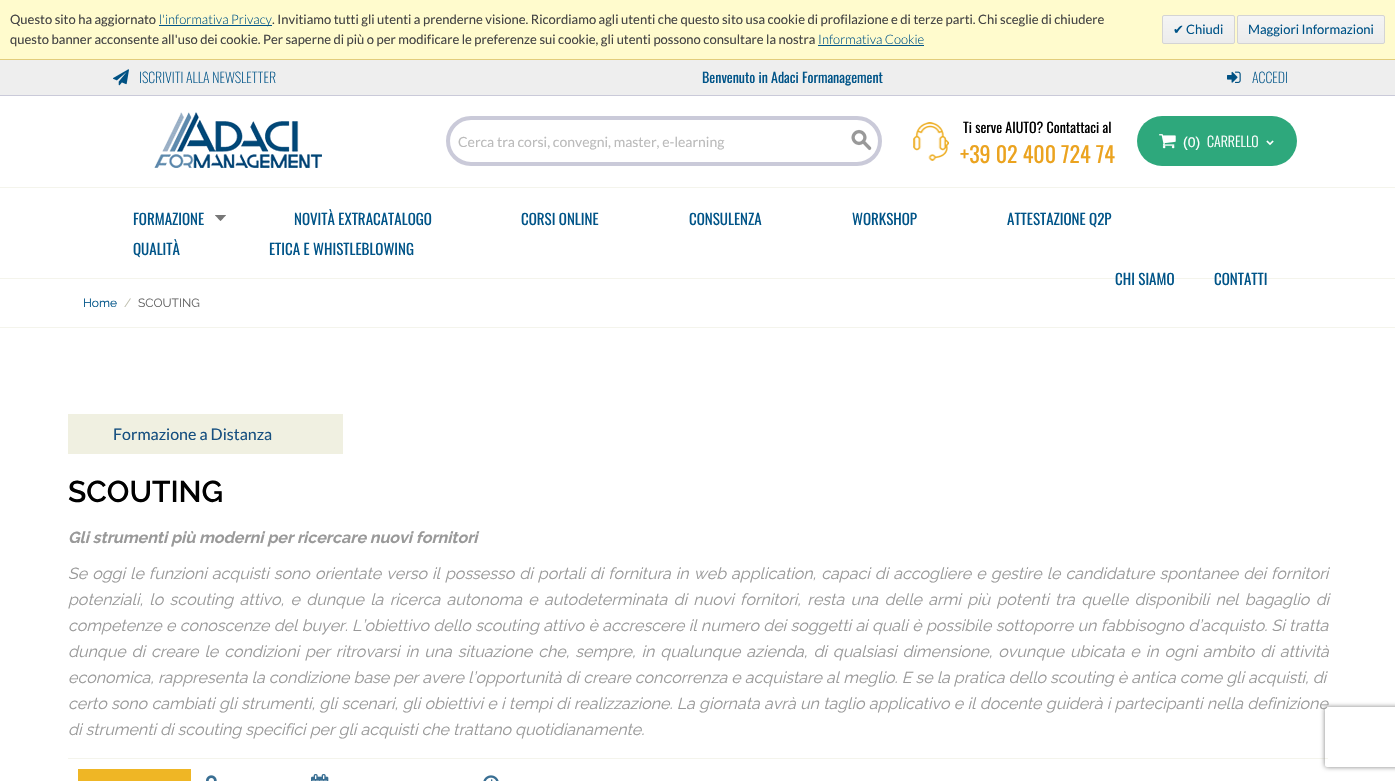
#include "include/core/SkBlurTypes.h"
#include "include/core/SkCanvas.h"
#include "include/core/SkData.h"
#include "include/core/SkFont.h"
#include "include/core/SkFontMgr.h"
#include "include/core/SkImage.h"
#include "include/core/SkMaskFilter.h"
#include "include/core/SkPaint.h"
#include "include/core/SkPathBuilder.h"
#include "include/core/SkTextBlob.h"
#include "include/effects/SkDashPathEffect.h"
#include "include/effects/SkGradientShader.h"
#include "include/utils/SkParsePath.h"

extern sk_sp<SkFontMgr> fontMgr;

void draw(SkCanvas* canvas) {
    SkPaint p;
    p.setAntiAlias(true);
    auto font = [&](const char* family, int weight, float size, bool italic = false) {
        SkFontStyle style(weight, SkFontStyle::kNormal_Width,
            italic ? SkFontStyle::kItalic_Slant : SkFontStyle::kUpright_Slant);
        SkFont result(fontMgr->matchFamilyStyle(family, style), size);
        result.setSubpixel(true);
        return result;
    };
    auto drawTracked = [&](const char* s, float x, float y, const SkFont& font, const SkPaint& ink, float letter, float word) {
        std::vector<SkGlyphID> glyphs(font.countText(s, strlen(s), SkTextEncoding::kUTF8));
        std::vector<float> xs(glyphs.size());
        font.textToGlyphs(s, strlen(s), SkTextEncoding::kUTF8, glyphs);
        font.getXPos(glyphs, xs, x);
        float extra = 0;
        for (size_t i = 0; i < glyphs.size(); i++) {
            xs[i] += extra;
            extra += letter + word * (glyphs[i] == font.unicharToGlyph(' '));
        }
        canvas->drawTextBlob(SkTextBlob::MakeFromPosHGlyphs(glyphs, xs, y, font), 0, 0, ink);
    };
    auto drawPhoto = [&](const char* path, float l, float t, float r, float b) {
        auto image = SkImages::DeferredFromEncodedData(SkData::MakeFromFileName(path));
        canvas->drawImageRect(image, SkRect::MakeLTRB(l, t, r, b), SkSamplingOptions());
    };
    canvas->clear(0xFFFFFFFF);
    p.setColor(0xFFFFFBCD);
    canvas->drawRect(SkRect::MakeLTRB(0, 0, 1395, 59), p);
    p.setColor(0xFFE2CD7B);
    canvas->drawRect(SkRect::MakeLTRB(0, 59, 1395, 60), p);
    auto font1 = font("Lato", 400, 13);
    p.setColor(0xFF444444);
    canvas->drawString("Questo sito ha aggiornato", 10, 24, font1, p);
    p.setColor(0xFF005488);
    canvas->drawRect(SkRect::MakeLTRB(159, 25, 272, 26), p);
    auto font2 = font("Lato", 300, 13);
    canvas->drawString("l'informativa Privacy", 159, 24, font2, p);
    p.setColor(0xFF444444);
    canvas->drawString(". Invitiamo tutti gli utenti a prenderne visione. Ricordiamo agli utenti che questo sito usa cookie di profilazione e di terze parti. Chi sceglie di chiudere", 272, 24, font1, p);
    canvas->drawString("questo banner acconsente all'uso dei cookie. Per saperne di più o per modificare le preferenze sui cookie, gli utenti possono consultare la nostra", 10, 44, font1, p);
    p.setColor(0xFF005488);
    canvas->drawString("Informativa Cookie", 818, 44, font2, p);
    canvas->drawRect(SkRect::MakeLTRB(818, 45, 924, 46), p);
    canvas->save();
    canvas->clipPath(SkPathBuilder().moveTo(1164, 15).lineTo(1233, 15).cubicTo(1234, 15, 1235, 16, 1235, 17).lineTo(1235, 42).cubicTo(1235, 43, 1234, 44, 1233, 44).lineTo(1164, 44).cubicTo(1163, 44, 1162, 43, 1162, 42).lineTo(1162, 17).cubicTo(1162, 16, 1163, 15, 1164, 15).close().detach(), true);
    {
        const SkColor colors[] = {0xFFF4F4F4, 0xFFECECEC};
        const float stops[] = {0, 1};
        const SkPoint ends[] = {{1199, 16}, {1199, 43}};
        p.setShader(SkGradientShader::MakeLinear(ends, colors, stops, 2, SkTileMode::kClamp));
        p.setAlpha(255);
    }
    canvas->drawRect(SkRect::MakeLTRB(1162, 16, 1235, 43), p);
    canvas->restore();
    p.setStyle(SkPaint::kStroke_Style);
    p.setStrokeWidth(1);
    p.setShader(nullptr);
    p.setColor(0xFFD4D4D4);
    canvas->drawRoundRect(SkRect::MakeLTRB(1162.5f, 15.5f, 1234.5f, 43.5f), 1.5f, 1.5f, p);
    auto font3 = font("DejaVu Sans", 400, 13);
    p.setStyle(SkPaint::kFill_Style);
    p.setColor(0xFF005488);
    canvas->drawString("✔", 1173, 34, font3, p);
    canvas->drawString("Chiudi", 1186, 34, font1, p);
    canvas->save();
    canvas->clipPath(SkPathBuilder().moveTo(1239, 15).lineTo(1383, 15).cubicTo(1384, 15, 1385, 16, 1385, 17).lineTo(1385, 42).cubicTo(1385, 43, 1384, 44, 1383, 44).lineTo(1239, 44).cubicTo(1238, 44, 1237, 43, 1237, 42).lineTo(1237, 17).cubicTo(1237, 16, 1238, 15, 1239, 15).close().detach(), true);
    {
        const SkColor colors[] = {0xFFF4F4F4, 0xFFECECEC};
        const float stops[] = {0, 1};
        const SkPoint ends[] = {{1311, 16}, {1311, 43}};
        p.setShader(SkGradientShader::MakeLinear(ends, colors, stops, 2, SkTileMode::kClamp));
        p.setAlpha(255);
    }
    canvas->drawRect(SkRect::MakeLTRB(1237, 16, 1385, 43), p);
    canvas->restore();
    p.setStyle(SkPaint::kStroke_Style);
    p.setShader(nullptr);
    p.setColor(0xFFD4D4D4);
    canvas->drawRoundRect(SkRect::MakeLTRB(1237.5f, 15.5f, 1384.5f, 43.5f), 1.5f, 1.5f, p);
    p.setStyle(SkPaint::kFill_Style);
    p.setColor(0xFF005488);
    canvas->drawString("Maggiori Informazioni", 1248, 34, font1, p);
    {
        const struct { float l, t, r, b; SkColor color; } items[] = {
            {0, 187, 1395, 188, 0xFFF4F4EC},
            {0, 60, 1395, 95, 0xFFEEEEEE},
            {0, 95, 1395, 96, 0xFFCACAD9},
        };
        for (auto [l, t, r, b, color] : items) {
            p.setColor(color);
            canvas->drawRect(SkRect::MakeLTRB(l, t, r, b), p);
        }
    }
    drawPhoto("media/1.png", 113, 69, 129, 86);
    auto font4 = font("Oswald", 200, 14);
    p.setColor(0xFF005488);
    canvas->drawString("ISCRIVITI ALLA NEWSLETTER", 139, 83, font4, p);
    auto font5 = font("Oswald", 400, 14);
    canvas->drawString("Benvenuto in Adaci Formanagement", 702, 83, font5, p);
    drawPhoto("media/2.png", 1227, 71, 1241, 83);
    canvas->drawString("ACCEDI", 1252, 83, font4, p);
    drawPhoto("media/3.png", 154, 112, 322, 168);
    p.setStyle(SkPaint::kStroke_Style);
    p.setStrokeWidth(4);
    p.setColor(0xFFCACAD9);
    canvas->drawRoundRect(SkRect::MakeLTRB(448, 118, 880, 164), 23, 23, p);
    auto font6 = font("Lato", 400, 14);
    p.setStyle(SkPaint::kFill_Style);
    p.setColor(0xFFBBBBBB);
    canvas->drawString("Cerca tra corsi, convegni, master, e-learning", 458, 147, font6, p);
    drawPhoto("media/4.png", 851, 129, 872, 151);
    drawPhoto("media/5.png", 913, 122, 949, 161);
    p.setColor(0xFF000000);
    canvas->drawString("Ti serve AIUTO? Contattaci al", 963, 133, font5, p);
    auto font7 = font("Oswald", 400, 22);
    p.setColor(0xFFEBA31F);
    canvas->drawString("+39 02 400 724 74", 960, 163, font7, p);
    p.setColor(0xFF2EA87C);
    canvas->drawRoundRect(SkRect::MakeLTRB(1137, 116, 1297, 166), 25, 25, p);
    drawPhoto("media/6.png", 1159, 134, 1176, 149);
    auto font8 = font("Liberation Sans", 400, 14);
    p.setColor(0xFFFFFFFF);
    canvas->drawString("(0)", 1183, 147, font8, p);
    auto font9 = font("Oswald", 300, 14);
    canvas->drawString("CARRELLO", 1207, 147, font9, p);
    drawPhoto("media/7.png", 1266, 140, 1274, 146);
    p.setColor(0xFFF4F4EC);
    canvas->drawRect(SkRect::MakeLTRB(0, 278, 1395, 279), p);
    drawPhoto("media/8.png", 215, 215, 226, 221);
    auto font10 = font("Oswald", 400, 15);
    p.setColor(0xFF005488);
    {
        const struct { const char* s; float x, y; } items[] = {
            {"FORMAZIONE", 133, 225},
            {"NOVITÀ EXTRACATALOGO", 294, 225},
            {"CORSI ONLINE", 521, 225},
            {"CONSULENZA", 689, 225},
            {"WORKSHOP", 852, 225},
            {"ATTESTAZIONE Q2P", 1007, 225},
            {"QUALITÀ", 133, 255},
            {"ETICA E WHISTLEBLOWING", 269, 255},
            {"CHI SIAMO", 1115, 285},
            {"CONTATTI", 1214, 285},
        };
        for (auto [s, x, y] : items) {
            canvas->drawString(s, x, y, font10, p);
        }
    }
    p.setColor(0xFFF4F4EC);
    canvas->drawRect(SkRect::MakeLTRB(0, 327, 1395, 328), p);
    auto font11 = font("Raleway", 400, 12);
    p.setColor(0xFF005488);
    canvas->drawString("Home", 83, 307, font11, p);
    p.setColor(0xFFBDBDAC);
    canvas->drawString("/", 124, 307, font11, p);
    p.setColor(0xFF636363);
    canvas->drawString("SCOUTING", 138, 307, font11, p);
    p.setColor(0xFFF0F0E1);
    canvas->drawRect(SkRect::MakeLTRB(68, 414, 343, 454), p);
    auto font12 = font("Lato", 400, 16);
    p.setColor(0xFF175080);
    canvas->drawString("Formazione a Distanza", 113, 440, font12, p);
    auto font13 = font("Raleway", 600, 30);
    p.setColor(0xFF000000);
    canvas->drawString("SCOUTING", 68, 502, font13, p);
    auto font14 = font("Raleway", 700, 16, true);
    p.setColor(0xFF999999);
    canvas->drawString("Gli strumenti più moderni per ricercare nuovi fornitori", 68, 543, font14, p);
    auto font15 = font("Raleway", 400, 16, true);
    drawTracked("Se oggi le funzioni acquisti sono orientate verso il possesso di portali di fornitura in web application, capaci di accogliere e gestire le candidature spontanee dei fornitori", 68, 579, font15, p, 0, 1);
    drawTracked("potenziali, lo scouting attivo, e dunque la ricerca autonoma e autodeterminata di nuovi fornitori, resta una delle armi più potenti tra quelle disponibili nel bagaglio di", 68, 605, font15, p, 0, 2.3f);
    drawTracked("competenze e conoscenze del buyer. L’obiettivo dello scouting attivo è accrescere il numero dei soggetti ai quali è possibile sottoporre un fabbisogno d’acquisto. Si tratta", 68, 631, font15, p, 0, 0.25f);
    drawTracked("dunque di creare le condizioni per ritrovarsi in una situazione che, sempre, in qualunque azienda, di qualsiasi dimensione, ovunque ubicata e in ogni ambito di attività", 68, 657, font15, p, 0, 1.9f);
    canvas->drawString("economica, rappresenta la condizione base per avere l’opportunità di creare concorrenza e acquistare al meglio. E se la pratica dello scouting è antica come gli acquisti, di", 68, 683, font15, p);
    drawTracked("certo sono cambiati gli strumenti, gli scenari, gli obiettivi e i tempi di realizzazione. La giornata avrà un taglio applicativo e il docente guiderà i partecipanti nella definizione", 68, 709, font15, p, 0, 0.25f);
    canvas->drawString("di strumenti di scouting specifici per gli acquisti che trattano quotidianamente.", 68, 735, font15, p);
    p.setColor(0xFFF4F4EC);
    canvas->drawRect(SkRect::MakeLTRB(68, 758, 1328, 759), p);
    p.setColor(0xFFEFB625);
    canvas->drawRect(SkRect::MakeLTRB(78, 769, 191, 781), p);
    drawPhoto("media/9.png", 206, 775, 217, 781);
    drawPhoto("media/10.png", 311, 774, 329, 781);
    drawPhoto("media/11.png", 483, 775, 499, 781);
    canvas->save();
    canvas->clipPath(SkPathBuilder(SkPathFillType::kEvenOdd).moveTo(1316, 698).lineTo(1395, 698).lineTo(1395, 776).lineTo(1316, 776).close().moveTo(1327, 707).lineTo(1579, 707).cubicTo(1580, 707, 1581, 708, 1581, 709).lineTo(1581, 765).cubicTo(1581, 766, 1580, 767, 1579, 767).lineTo(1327, 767).cubicTo(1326, 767, 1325, 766, 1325, 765).lineTo(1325, 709).cubicTo(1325, 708, 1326, 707, 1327, 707).close().detach(), true);
    p.setColor(0xFF808080);
    p.setMaskFilter(SkMaskFilter::MakeBlur(kNormal_SkBlurStyle, 2.5f));
    canvas->drawRoundRect(SkRect::MakeLTRB(1325, 707, 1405, 767), 2, 2, p);
    p.setMaskFilter(nullptr);
    canvas->restore();
}
